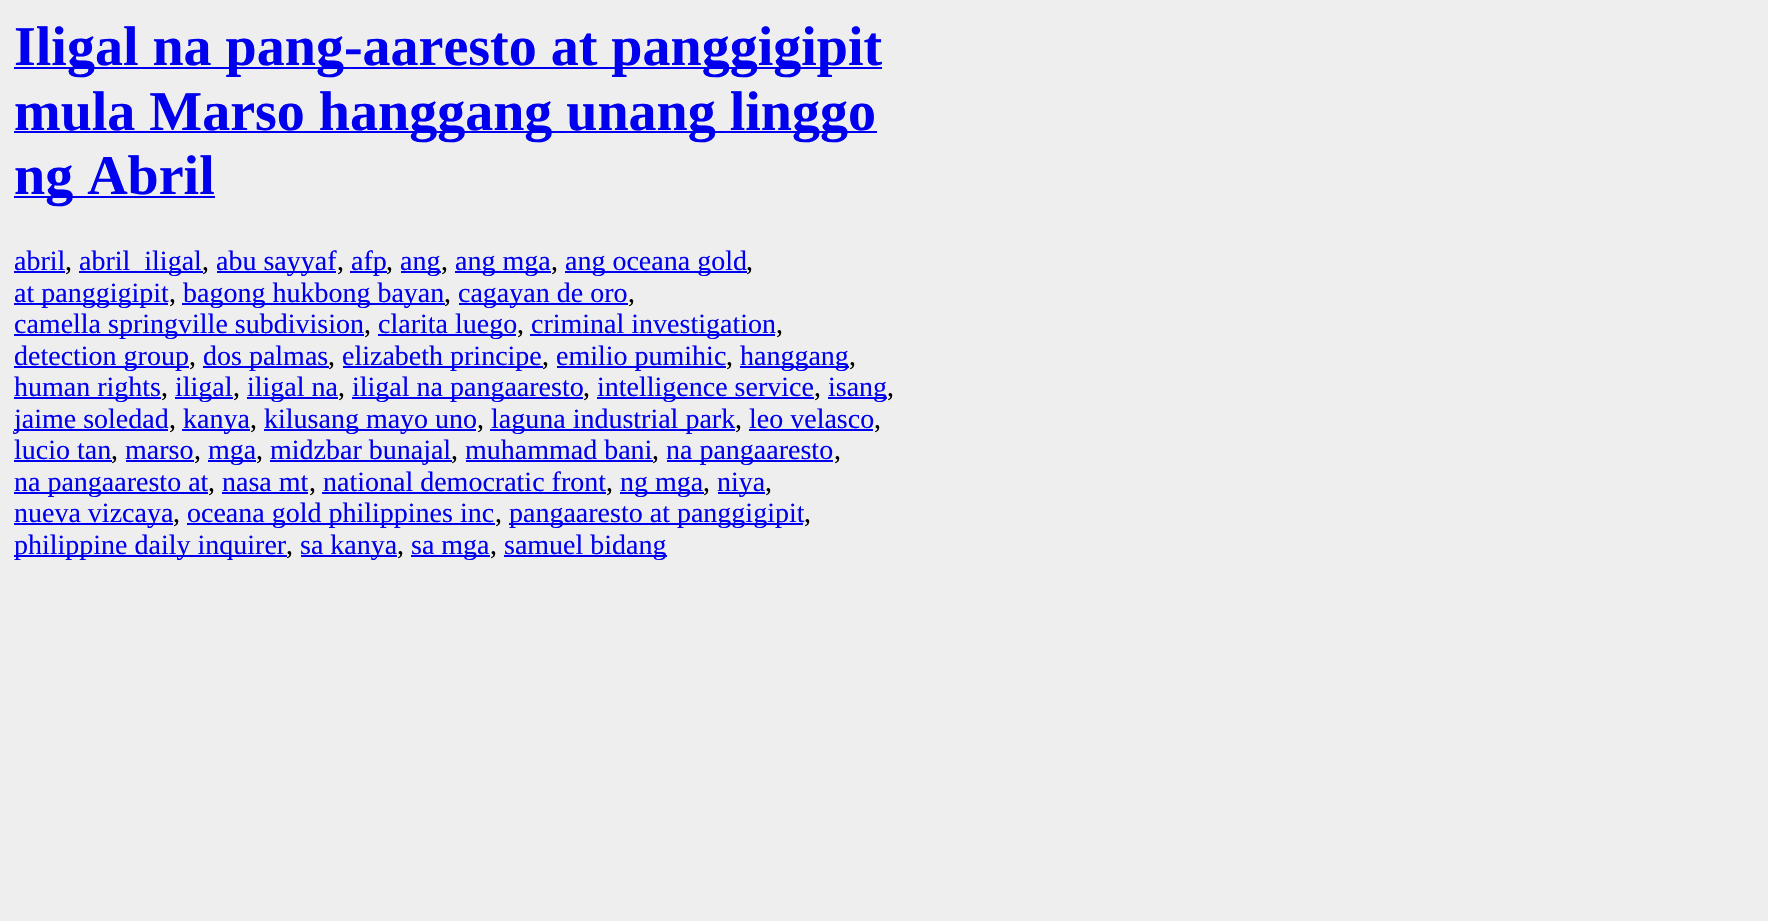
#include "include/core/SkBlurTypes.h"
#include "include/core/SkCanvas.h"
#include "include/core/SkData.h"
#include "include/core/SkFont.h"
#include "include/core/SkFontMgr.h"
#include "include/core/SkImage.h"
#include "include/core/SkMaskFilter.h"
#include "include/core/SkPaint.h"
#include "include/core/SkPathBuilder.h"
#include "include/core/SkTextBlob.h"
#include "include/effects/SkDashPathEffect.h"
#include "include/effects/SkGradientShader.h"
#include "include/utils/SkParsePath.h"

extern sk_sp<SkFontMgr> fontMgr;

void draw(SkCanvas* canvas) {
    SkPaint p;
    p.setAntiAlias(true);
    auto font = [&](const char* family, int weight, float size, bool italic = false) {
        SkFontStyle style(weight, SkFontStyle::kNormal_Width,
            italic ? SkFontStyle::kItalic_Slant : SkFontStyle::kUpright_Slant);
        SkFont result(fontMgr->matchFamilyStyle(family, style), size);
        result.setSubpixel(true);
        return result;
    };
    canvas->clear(0xFFEEEEEE);
    p.setColor(0xFF0000EE);
    canvas->drawRect(SkRect::MakeLTRB(14, 67, 882, 69), p);
    auto font1 = font("Liberation Serif", 700, 56);
    canvas->drawString("Iligal na pang-aaresto at panggigipit", 14, 65, font1, p);
    canvas->drawRect(SkRect::MakeLTRB(14, 131, 877, 133), p);
    canvas->drawString("mula Marso hanggang unang linggo", 14, 130, font1, p);
    canvas->drawRect(SkRect::MakeLTRB(14, 196, 215, 198), p);
    canvas->drawString("ng Abril", 14, 194, font1, p);
    auto font2 = font("Liberation Serif", 400, 28);
    canvas->drawString("abril", 14, 270, font2, p);
    canvas->drawRect(SkRect::MakeLTRB(14, 271, 65, 273), p);
    p.setColor(0xFF000000);
    canvas->drawString(",", 65, 270, font2, p);
    p.setColor(0xFF0000EE);
    canvas->drawRect(SkRect::MakeLTRB(79, 271, 203, 273), p);
    canvas->drawString("abril  iligal", 79, 270, font2, p);
    p.setColor(0xFF000000);
    canvas->drawString(",", 202, 270, font2, p);
    p.setColor(0xFF0000EE);
    canvas->drawRect(SkRect::MakeLTRB(217, 271, 336, 273), p);
    canvas->drawString("abu sayyaf", 216, 270, font2, p);
    p.setColor(0xFF000000);
    canvas->drawString(",", 337, 270, font2, p);
    p.setColor(0xFF0000EE);
    canvas->drawRect(SkRect::MakeLTRB(350, 271, 387, 273), p);
    canvas->drawString("afp", 351, 270, font2, p);
    p.setColor(0xFF000000);
    canvas->drawString(",", 386, 270, font2, p);
    p.setColor(0xFF0000EE);
    canvas->drawRect(SkRect::MakeLTRB(401, 271, 441, 273), p);
    canvas->drawString("ang", 400, 270, font2, p);
    p.setColor(0xFF000000);
    canvas->drawString(",", 441, 270, font2, p);
    p.setColor(0xFF0000EE);
    canvas->drawRect(SkRect::MakeLTRB(455, 271, 551, 273), p);
    canvas->drawString("ang mga", 455, 270, font2, p);
    p.setColor(0xFF000000);
    canvas->drawString(",", 551, 270, font2, p);
    p.setColor(0xFF0000EE);
    canvas->drawRect(SkRect::MakeLTRB(565, 271, 747, 273), p);
    canvas->drawString("ang oceana gold", 565, 270, font2, p);
    p.setColor(0xFF000000);
    canvas->drawString(",", 746, 270, font2, p);
    p.setColor(0xFF0000EE);
    canvas->drawRect(SkRect::MakeLTRB(14, 303, 168, 305), p);
    canvas->drawString("at panggigipit", 14, 302, font2, p);
    p.setColor(0xFF000000);
    canvas->drawString(",", 169, 302, font2, p);
    p.setColor(0xFF0000EE);
    canvas->drawRect(SkRect::MakeLTRB(182, 303, 445, 305), p);
    canvas->drawString("bagong hukbong bayan", 183, 302, font2, p);
    p.setColor(0xFF000000);
    canvas->drawString(",", 444, 302, font2, p);
    p.setColor(0xFF0000EE);
    canvas->drawRect(SkRect::MakeLTRB(459, 303, 628, 305), p);
    canvas->drawString("cagayan de oro", 458, 302, font2, p);
    p.setColor(0xFF000000);
    canvas->drawString(",", 628, 302, font2, p);
    p.setColor(0xFF0000EE);
    canvas->drawRect(SkRect::MakeLTRB(14, 334, 364, 336), p);
    canvas->drawString("camella springville subdivision", 14, 333, font2, p);
    p.setColor(0xFF000000);
    canvas->drawString(",", 364, 333, font2, p);
    p.setColor(0xFF0000EE);
    canvas->drawRect(SkRect::MakeLTRB(378, 334, 516, 336), p);
    canvas->drawString("clarita luego", 378, 333, font2, p);
    p.setColor(0xFF000000);
    canvas->drawString(",", 517, 333, font2, p);
    p.setColor(0xFF0000EE);
    canvas->drawRect(SkRect::MakeLTRB(530, 334, 775, 336), p);
    canvas->drawString("criminal investigation", 531, 333, font2, p);
    p.setColor(0xFF000000);
    canvas->drawString(",", 776, 333, font2, p);
    p.setColor(0xFF0000EE);
    canvas->drawRect(SkRect::MakeLTRB(14, 366, 189, 368), p);
    canvas->drawString("detection group", 14, 365, font2, p);
    p.setColor(0xFF000000);
    canvas->drawString(",", 189, 365, font2, p);
    p.setColor(0xFF0000EE);
    canvas->drawRect(SkRect::MakeLTRB(203, 366, 329, 368), p);
    canvas->drawString("dos palmas", 203, 365, font2, p);
    p.setColor(0xFF000000);
    canvas->drawString(",", 328, 365, font2, p);
    p.setColor(0xFF0000EE);
    canvas->drawRect(SkRect::MakeLTRB(343, 366, 543, 368), p);
    canvas->drawString("elizabeth principe", 342, 365, font2, p);
    p.setColor(0xFF000000);
    canvas->drawString(",", 542, 365, font2, p);
    p.setColor(0xFF0000EE);
    canvas->drawRect(SkRect::MakeLTRB(557, 366, 726, 368), p);
    canvas->drawString("emilio pumihic", 556, 365, font2, p);
    p.setColor(0xFF000000);
    canvas->drawString(",", 726, 365, font2, p);
    p.setColor(0xFF0000EE);
    canvas->drawRect(SkRect::MakeLTRB(740, 366, 849, 368), p);
    canvas->drawString("hanggang", 740, 365, font2, p);
    p.setColor(0xFF000000);
    canvas->drawString(",", 849, 365, font2, p);
    p.setColor(0xFF0000EE);
    canvas->drawRect(SkRect::MakeLTRB(14, 397, 161, 399), p);
    canvas->drawString("human rights", 14, 396, font2, p);
    p.setColor(0xFF000000);
    canvas->drawString(",", 161, 396, font2, p);
    p.setColor(0xFF0000EE);
    canvas->drawRect(SkRect::MakeLTRB(175, 397, 233, 399), p);
    canvas->drawString("iligal", 175, 396, font2, p);
    p.setColor(0xFF000000);
    canvas->drawString(",", 233, 396, font2, p);
    p.setColor(0xFF0000EE);
    canvas->drawRect(SkRect::MakeLTRB(247, 397, 338, 399), p);
    canvas->drawString("iligal na", 247, 396, font2, p);
    p.setColor(0xFF000000);
    canvas->drawString(",", 338, 396, font2, p);
    p.setColor(0xFF0000EE);
    canvas->drawRect(SkRect::MakeLTRB(352, 397, 583, 399), p);
    canvas->drawString("iligal na pangaaresto", 352, 396, font2, p);
    p.setColor(0xFF000000);
    canvas->drawString(",", 583, 396, font2, p);
    p.setColor(0xFF0000EE);
    canvas->drawRect(SkRect::MakeLTRB(597, 397, 814, 399), p);
    canvas->drawString("intelligence service", 597, 396, font2, p);
    p.setColor(0xFF000000);
    canvas->drawString(",", 814, 396, font2, p);
    p.setColor(0xFF0000EE);
    canvas->drawRect(SkRect::MakeLTRB(828, 397, 887, 399), p);
    canvas->drawString("isang", 828, 396, font2, p);
    p.setColor(0xFF000000);
    canvas->drawString(",", 887, 396, font2, p);
    p.setColor(0xFF0000EE);
    canvas->drawRect(SkRect::MakeLTRB(14, 429, 168, 431), p);
    canvas->drawString("jaime soledad", 14, 428, font2, p);
    p.setColor(0xFF000000);
    canvas->drawString(",", 169, 428, font2, p);
    p.setColor(0xFF0000EE);
    canvas->drawRect(SkRect::MakeLTRB(182, 429, 250, 431), p);
    canvas->drawString("kanya", 183, 428, font2, p);
    p.setColor(0xFF000000);
    canvas->drawString(",", 250, 428, font2, p);
    p.setColor(0xFF0000EE);
    canvas->drawRect(SkRect::MakeLTRB(264, 429, 476, 431), p);
    canvas->drawString("kilusang mayo uno", 264, 428, font2, p);
    p.setColor(0xFF000000);
    canvas->drawString(",", 477, 428, font2, p);
    p.setColor(0xFF0000EE);
    canvas->drawRect(SkRect::MakeLTRB(490, 429, 735, 431), p);
    canvas->drawString("laguna industrial park", 491, 428, font2, p);
    p.setColor(0xFF000000);
    canvas->drawString(",", 735, 428, font2, p);
    p.setColor(0xFF0000EE);
    canvas->drawString("leo velasco", 749, 428, font2, p);
    canvas->drawRect(SkRect::MakeLTRB(749, 429, 873, 431), p);
    p.setColor(0xFF000000);
    canvas->drawString(",", 874, 428, font2, p);
    p.setColor(0xFF0000EE);
    canvas->drawString("lucio tan", 14, 459, font2, p);
    canvas->drawRect(SkRect::MakeLTRB(14, 460, 112, 462), p);
    p.setColor(0xFF000000);
    canvas->drawString(",", 111, 459, font2, p);
    p.setColor(0xFF0000EE);
    canvas->drawString("marso", 125, 459, font2, p);
    canvas->drawRect(SkRect::MakeLTRB(126, 460, 194, 462), p);
    p.setColor(0xFF000000);
    canvas->drawString(",", 194, 459, font2, p);
    p.setColor(0xFF0000EE);
    canvas->drawRect(SkRect::MakeLTRB(208, 460, 256, 462), p);
    canvas->drawString("mga", 208, 459, font2, p);
    p.setColor(0xFF000000);
    canvas->drawString(",", 256, 459, font2, p);
    p.setColor(0xFF0000EE);
    canvas->drawRect(SkRect::MakeLTRB(270, 460, 452, 462), p);
    canvas->drawString("midzbar bunajal", 270, 459, font2, p);
    p.setColor(0xFF000000);
    canvas->drawString(",", 451, 459, font2, p);
    p.setColor(0xFF0000EE);
    canvas->drawString("muhammad bani", 465, 459, font2, p);
    canvas->drawRect(SkRect::MakeLTRB(466, 460, 653, 462), p);
    p.setColor(0xFF000000);
    canvas->drawString(",", 652, 459, font2, p);
    p.setColor(0xFF0000EE);
    canvas->drawRect(SkRect::MakeLTRB(667, 460, 833, 462), p);
    canvas->drawString("na pangaaresto", 666, 459, font2, p);
    p.setColor(0xFF000000);
    canvas->drawString(",", 834, 459, font2, p);
    p.setColor(0xFF0000EE);
    canvas->drawRect(SkRect::MakeLTRB(14, 492, 208, 494), p);
    canvas->drawString("na pangaaresto at", 14, 491, font2, p);
    p.setColor(0xFF000000);
    canvas->drawString(",", 208, 491, font2, p);
    p.setColor(0xFF0000EE);
    canvas->drawString("nasa mt", 222, 491, font2, p);
    canvas->drawRect(SkRect::MakeLTRB(222, 492, 308, 494), p);
    p.setColor(0xFF000000);
    canvas->drawString(",", 309, 491, font2, p);
    p.setColor(0xFF0000EE);
    canvas->drawString("national democratic front", 323, 491, font2, p);
    canvas->drawRect(SkRect::MakeLTRB(322, 492, 606, 494), p);
    p.setColor(0xFF000000);
    canvas->drawString(",", 606, 491, font2, p);
    p.setColor(0xFF0000EE);
    canvas->drawRect(SkRect::MakeLTRB(620, 492, 704, 494), p);
    canvas->drawString("ng mga", 620, 491, font2, p);
    p.setColor(0xFF000000);
    canvas->drawString(",", 703, 491, font2, p);
    p.setColor(0xFF0000EE);
    canvas->drawRect(SkRect::MakeLTRB(718, 492, 765, 494), p);
    canvas->drawString("niya", 717, 491, font2, p);
    p.setColor(0xFF000000);
    canvas->drawString(",", 765, 491, font2, p);
    p.setColor(0xFF0000EE);
    canvas->drawRect(SkRect::MakeLTRB(14, 523, 173, 525), p);
    canvas->drawString("nueva vizcaya", 14, 522, font2, p);
    p.setColor(0xFF000000);
    canvas->drawString(",", 173, 522, font2, p);
    p.setColor(0xFF0000EE);
    canvas->drawRect(SkRect::MakeLTRB(187, 523, 495, 525), p);
    canvas->drawString("oceana gold philippines inc", 187, 522, font2, p);
    p.setColor(0xFF000000);
    canvas->drawString(",", 495, 522, font2, p);
    p.setColor(0xFF0000EE);
    canvas->drawRect(SkRect::MakeLTRB(509, 523, 803, 525), p);
    canvas->drawString("pangaaresto at panggigipit", 509, 522, font2, p);
    p.setColor(0xFF000000);
    canvas->drawString(",", 804, 522, font2, p);
    p.setColor(0xFF0000EE);
    canvas->drawRect(SkRect::MakeLTRB(14, 555, 287, 557), p);
    canvas->drawString("philippine daily inquirer", 14, 554, font2, p);
    p.setColor(0xFF000000);
    canvas->drawString(",", 286, 554, font2, p);
    p.setColor(0xFF0000EE);
    canvas->drawRect(SkRect::MakeLTRB(301, 555, 397, 557), p);
    canvas->drawString("sa kanya", 300, 554, font2, p);
    p.setColor(0xFF000000);
    canvas->drawString(",", 397, 554, font2, p);
    p.setColor(0xFF0000EE);
    canvas->drawRect(SkRect::MakeLTRB(411, 555, 490, 557), p);
    canvas->drawString("sa mga", 411, 554, font2, p);
    p.setColor(0xFF000000);
    canvas->drawString(",", 490, 554, font2, p);
    p.setColor(0xFF0000EE);
    canvas->drawRect(SkRect::MakeLTRB(504, 555, 667, 557), p);
    canvas->drawString("samuel bidang", 504, 554, font2, p);
}
